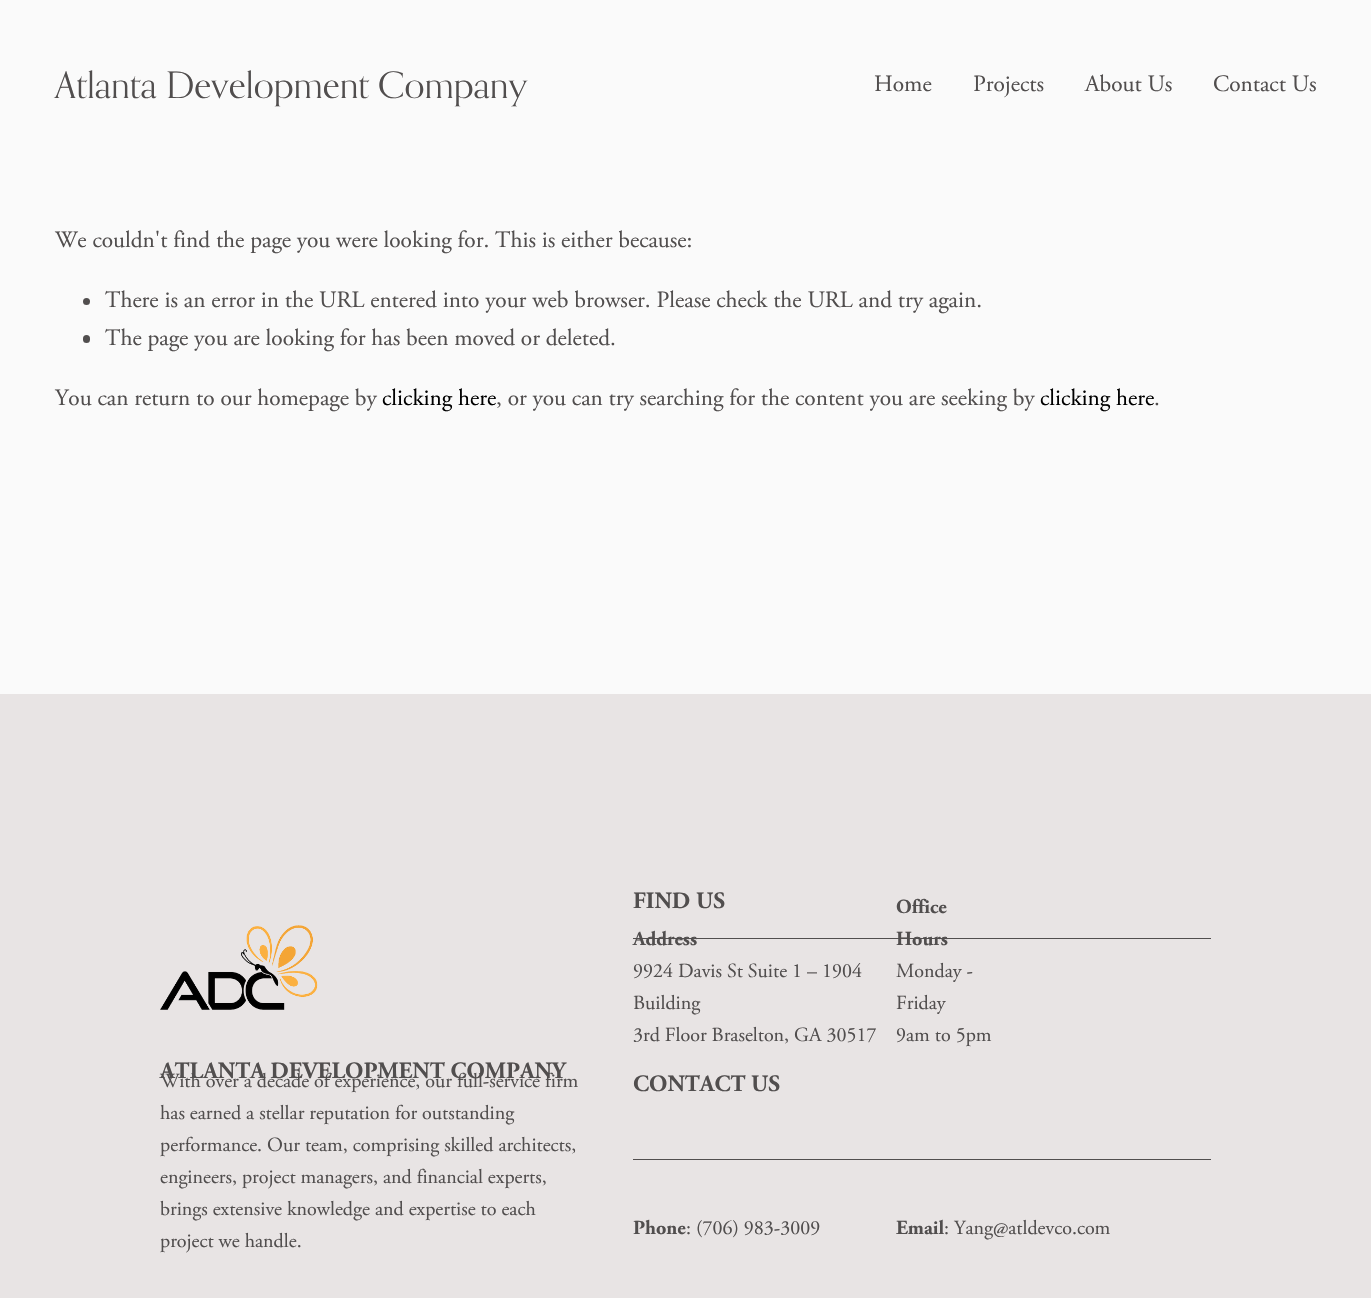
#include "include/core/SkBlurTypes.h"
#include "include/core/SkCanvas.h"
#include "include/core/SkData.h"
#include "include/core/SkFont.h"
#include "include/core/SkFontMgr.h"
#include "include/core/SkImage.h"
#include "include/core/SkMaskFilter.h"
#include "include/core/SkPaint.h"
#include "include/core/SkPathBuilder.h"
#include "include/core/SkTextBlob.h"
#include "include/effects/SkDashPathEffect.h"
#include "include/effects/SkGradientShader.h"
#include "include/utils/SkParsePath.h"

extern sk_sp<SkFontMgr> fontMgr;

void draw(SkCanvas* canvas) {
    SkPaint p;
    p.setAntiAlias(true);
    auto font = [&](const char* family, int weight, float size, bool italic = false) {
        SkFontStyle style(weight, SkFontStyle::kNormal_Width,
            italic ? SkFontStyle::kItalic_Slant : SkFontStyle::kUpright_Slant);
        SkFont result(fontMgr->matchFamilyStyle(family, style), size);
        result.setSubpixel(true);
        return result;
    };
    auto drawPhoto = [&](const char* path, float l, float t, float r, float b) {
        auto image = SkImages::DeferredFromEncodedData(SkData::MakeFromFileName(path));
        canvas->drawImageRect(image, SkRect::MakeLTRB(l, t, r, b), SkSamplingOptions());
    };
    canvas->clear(0xFFFAFAFA);
    auto font1 = font("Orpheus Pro", 400, 36.5f);
    p.setColor(0xFF514E4E);
    canvas->drawString("Atlanta Development Company", 55, 98, font1, p);
    auto font2 = font("Adobe Garamond", 400, 23.3f);
    {
        const struct { const char* s; float x, y; } items[] = {
            {"Home", 874, 91},
            {"Projects", 973, 91},
            {"About Us", 1085, 91},
            {"Contact Us", 1213, 91},
            {"We couldn't find the page you were looking for. This is either because:", 55, 247},
        };
        for (auto [s, x, y] : items) {
            canvas->drawString(s, x, y, font2, p);
        }
    }
    canvas->drawCircle(86.5f, 301.5f, 3.5f, p);
    canvas->drawString("There is an error in the URL entered into your web browser. Please check the URL and try again.", 105, 307, font2, p);
    canvas->drawRoundRect(SkRect::MakeLTRB(83, 335, 90, 343), 3.5f, 3.5f, p);
    canvas->drawString("The page you are looking for has been moved or deleted.", 105, 345, font2, p);
    canvas->drawString("You can return to our homepage by", 55, 405, font2, p);
    p.setColor(0xFF000000);
    canvas->drawString("clicking here", 382, 405, font2, p);
    p.setColor(0xFF514E4E);
    canvas->drawString(", or you can try searching for the content you are seeking by", 496, 405, font2, p);
    p.setColor(0xFF000000);
    canvas->drawString("clicking here", 1040, 405, font2, p);
    p.setColor(0xFF514E4E);
    canvas->drawString(".", 1154, 405, font2, p);
    p.setColor(0xFFE8E4E4);
    canvas->drawRect(SkRect::MakeLTRB(0, 694, 1371, 1298), p);
    drawPhoto("media/1.png", 160, 925, 318, 1010);
    auto font3 = font("Adobe Garamond", 700, 23.3f);
    p.setColor(0xFF514E4E);
    canvas->drawString("FIND US", 633, 908, font3, p);
    auto font4 = font("Adobe Garamond", 700, 20);
    canvas->drawString("Office", 896, 913, font4, p);
    canvas->drawString("Hours", 896, 945, font4, p);
    auto font5 = font("Adobe Garamond", 400, 20);
    {
        const struct { const char* s; float x, y; } items[] = {
            {"Monday -", 896, 977},
            {"Friday", 896, 1009},
            {"9am to 5pm", 896, 1041},
        };
        for (auto [s, x, y] : items) {
            canvas->drawString(s, x, y, font5, p);
        }
    }
    canvas->drawString("Address", 633, 945, font4, p);
    {
        const struct { const char* s; float x, y; } items[] = {
            {"9924 Davis St Suite 1 – 1904", 633, 977},
            {"Building", 633, 1009},
            {"3rd Floor Braselton, GA 30517", 633, 1041},
        };
        for (auto [s, x, y] : items) {
            canvas->drawString(s, x, y, font5, p);
        }
    }
    canvas->drawRect(SkRect::MakeLTRB(633, 938, 1211, 939), p);
    canvas->drawString("ATLANTA DEVELOPMENT COMPANY", 160, 1078, font3, p);
    {
        const struct { const char* s; float x, y; } items[] = {
            {"With over a decade of experience, our full-service firm", 160, 1087},
            {"has earned a stellar reputation for outstanding", 160, 1119},
            {"performance. Our team, comprising skilled architects,", 160, 1151},
            {"engineers, project managers, and financial experts,", 160, 1183},
            {"brings extensive knowledge and expertise to each", 160, 1215},
            {"project we handle.", 160, 1247},
        };
        for (auto [s, x, y] : items) {
            canvas->drawString(s, x, y, font5, p);
        }
    }
    canvas->drawString("CONTACT US", 633, 1091, font3, p);
    canvas->drawRect(SkRect::MakeLTRB(633, 1159, 1211, 1160), p);
    canvas->drawString("Phone", 633, 1234, font4, p);
    canvas->drawString(": (706) 983-3009", 686, 1234, font5, p);
    canvas->drawString("Email", 896, 1234, font4, p);
    canvas->drawString(": Yang@atldevco.com", 944, 1234, font5, p);
}
